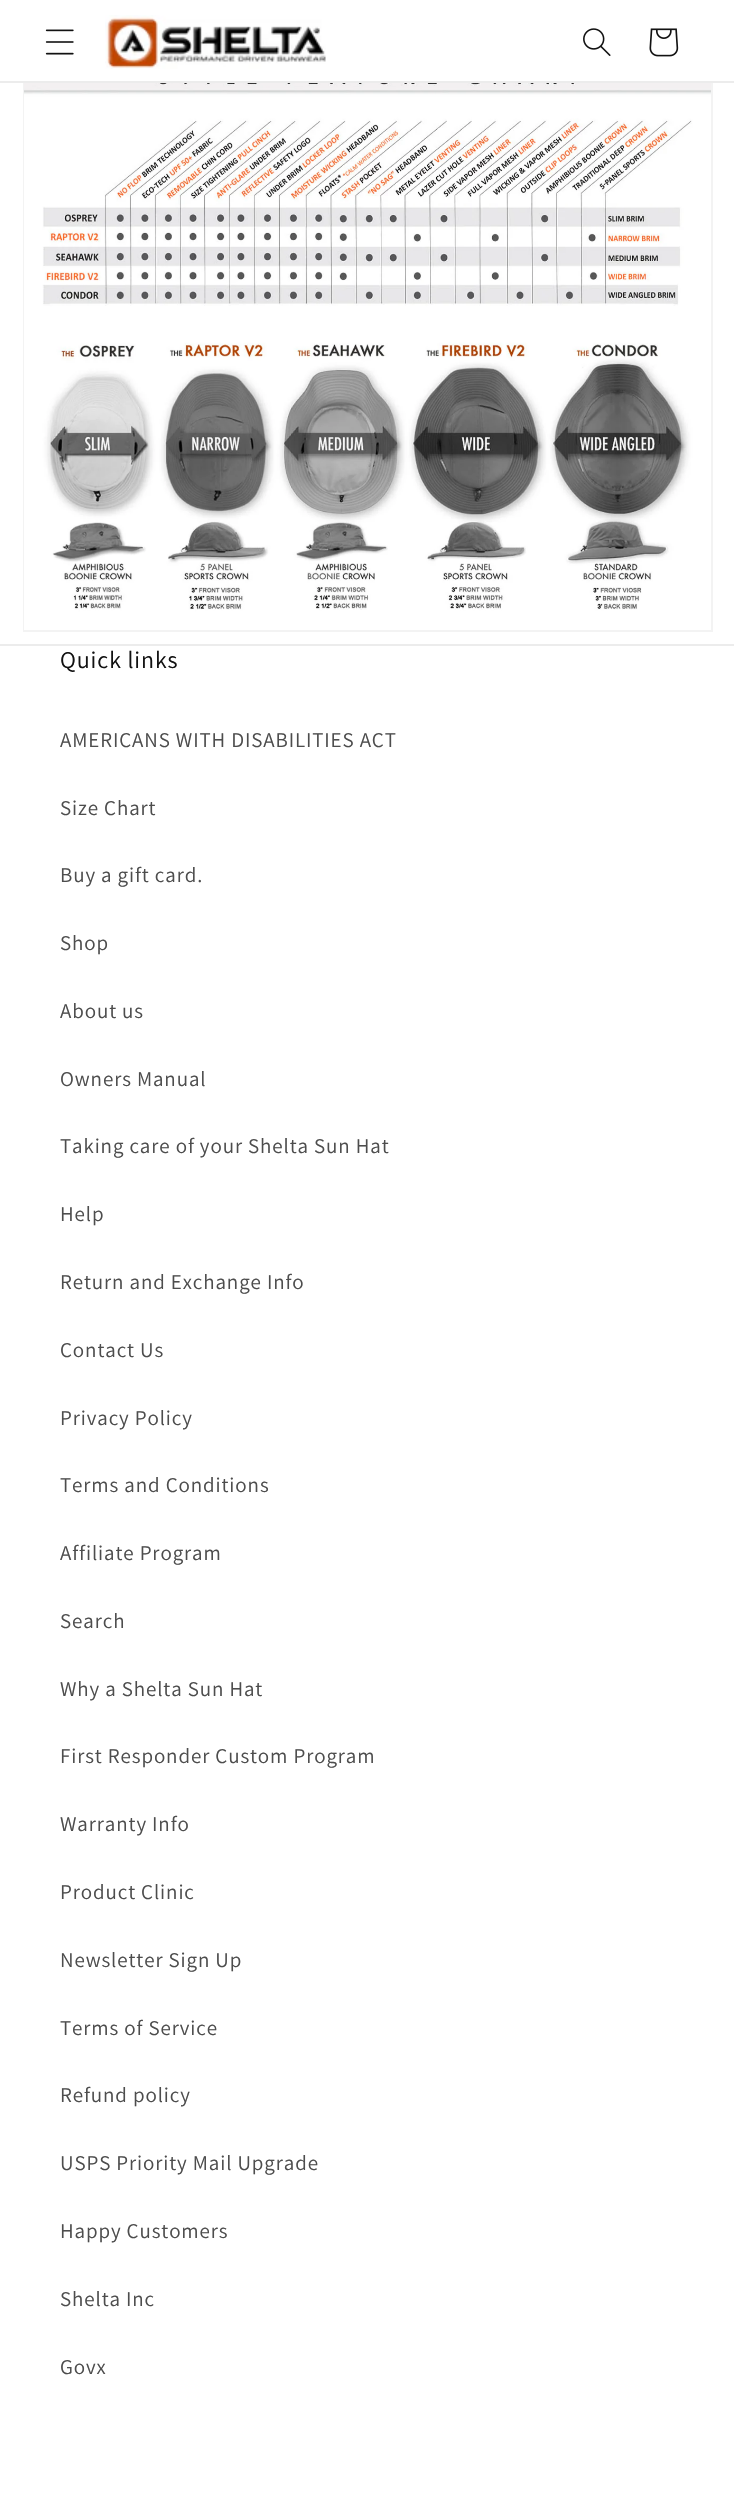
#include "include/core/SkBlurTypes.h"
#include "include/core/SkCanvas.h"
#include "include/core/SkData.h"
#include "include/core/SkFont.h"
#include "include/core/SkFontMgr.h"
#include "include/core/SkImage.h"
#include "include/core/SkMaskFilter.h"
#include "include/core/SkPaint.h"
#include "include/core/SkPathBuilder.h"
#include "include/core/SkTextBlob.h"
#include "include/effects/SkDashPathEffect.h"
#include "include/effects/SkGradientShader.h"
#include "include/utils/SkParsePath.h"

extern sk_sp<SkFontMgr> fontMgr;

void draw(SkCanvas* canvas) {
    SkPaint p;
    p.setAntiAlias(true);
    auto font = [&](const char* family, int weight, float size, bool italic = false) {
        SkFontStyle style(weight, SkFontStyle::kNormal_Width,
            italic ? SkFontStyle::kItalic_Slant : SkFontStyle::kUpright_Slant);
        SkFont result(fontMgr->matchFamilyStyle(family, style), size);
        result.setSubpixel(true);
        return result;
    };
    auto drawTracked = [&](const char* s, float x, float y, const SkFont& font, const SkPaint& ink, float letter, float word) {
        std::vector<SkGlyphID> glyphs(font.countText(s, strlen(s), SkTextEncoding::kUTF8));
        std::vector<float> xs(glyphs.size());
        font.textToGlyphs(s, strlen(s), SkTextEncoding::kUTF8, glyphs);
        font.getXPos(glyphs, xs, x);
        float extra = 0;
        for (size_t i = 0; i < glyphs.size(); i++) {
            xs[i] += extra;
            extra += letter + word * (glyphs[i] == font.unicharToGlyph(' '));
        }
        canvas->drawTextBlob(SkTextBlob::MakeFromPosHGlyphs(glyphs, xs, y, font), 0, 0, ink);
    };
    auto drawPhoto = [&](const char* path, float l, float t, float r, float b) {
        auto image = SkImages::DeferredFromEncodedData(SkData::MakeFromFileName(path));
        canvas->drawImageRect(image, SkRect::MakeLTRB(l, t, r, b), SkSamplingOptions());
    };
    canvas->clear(0xFFFFFFFF);
    p.setStyle(SkPaint::kStroke_Style);
    p.setStrokeWidth(2);
    p.setColor(0xFFF3F3F3);
    canvas->drawRect(SkRect::MakeLTRB(24, 43, 712, 631), p);
    p.setStyle(SkPaint::kFill_Style);
    p.setColor(0xFFFFFFFF);
    canvas->drawRect(SkRect::MakeLTRB(23, 42, 713, 81), p);
    p.setColor(0xFFECECEC);
    canvas->drawRect(SkRect::MakeLTRB(0, 81, 734, 83), p);
    drawPhoto("media/1.png", 45, 29, 74, 55);
    drawPhoto("media/2.png", 105, 15, 326, 69);
    drawPhoto("media/3.png", 583, 28, 611, 56);
    drawPhoto("media/4.png", 649, 28, 679, 57);
    drawPhoto("media/5.png", 24, 83, 711, 630);
    canvas->drawRect(SkRect::MakeLTRB(0, 644, 734, 646), p);
    auto font1 = font("Assistant", 400, 24);
    p.setColor(0xFF121212);
    drawTracked("Quick links", 60, 668, font1, p, 0.9f, 0);
    auto font2 = font("Assistant", 400, 21);
    p.setColor(0xFF4D4D4D);
    {
        const struct { const char* s; float x, y; } items[] = {
            {"AMERICANS WITH DISABILITIES ACT", 60, 747},
            {"Size Chart", 60, 815},
            {"Buy a gift card.", 60, 882},
            {"Shop", 60, 950},
            {"About us", 60, 1018},
            {"Owners Manual", 60, 1086},
            {"Taking care of your Shelta Sun Hat", 60, 1153},
            {"Help", 60, 1221},
            {"Return and Exchange Info", 60, 1289},
            {"Contact Us", 60, 1357},
            {"Privacy Policy", 60, 1425},
            {"Terms and Conditions", 60, 1492},
            {"Affiliate Program", 60, 1560},
            {"Search", 60, 1628},
            {"Why a Shelta Sun Hat", 60, 1696},
            {"First Responder Custom Program", 60, 1763},
            {"Warranty Info", 60, 1831},
            {"Product Clinic", 60, 1899},
            {"Newsletter Sign Up", 60, 1967},
            {"Terms of Service", 60, 2035},
            {"Refund policy", 60, 2102},
            {"USPS Priority Mail Upgrade", 60, 2170},
            {"Happy Customers", 60, 2238},
            {"Shelta Inc", 60, 2306},
            {"Govx", 60, 2374},
        };
        for (auto [s, x, y] : items) {
            drawTracked(s, x, y, font2, p, 0.9f, 0);
        }
    }
}
